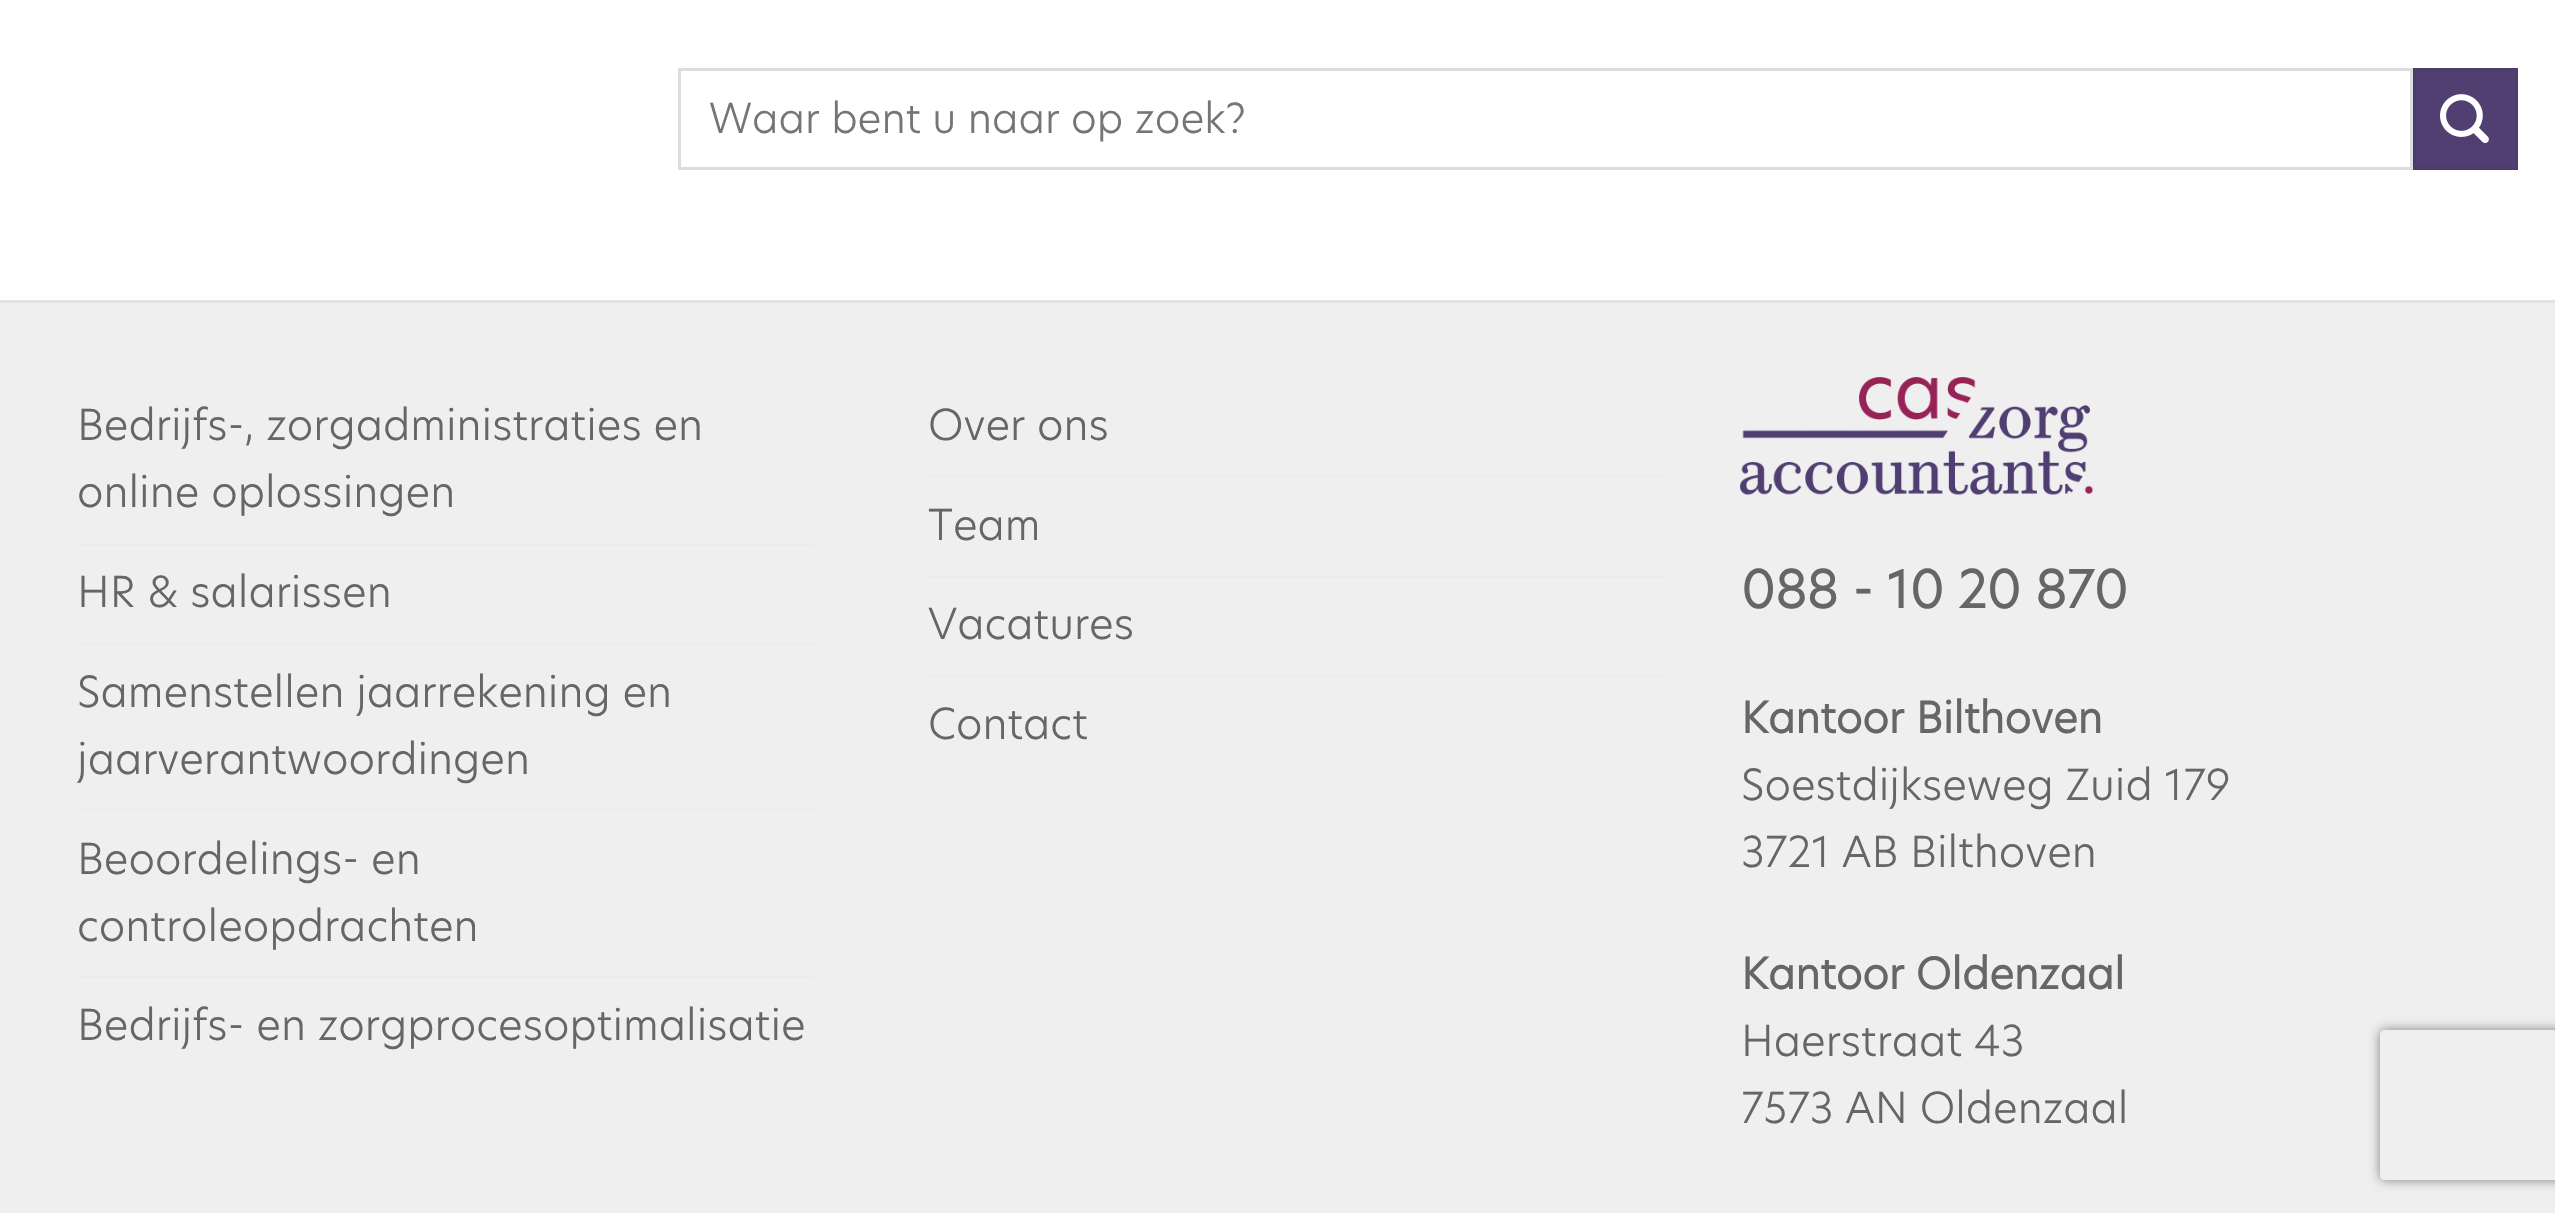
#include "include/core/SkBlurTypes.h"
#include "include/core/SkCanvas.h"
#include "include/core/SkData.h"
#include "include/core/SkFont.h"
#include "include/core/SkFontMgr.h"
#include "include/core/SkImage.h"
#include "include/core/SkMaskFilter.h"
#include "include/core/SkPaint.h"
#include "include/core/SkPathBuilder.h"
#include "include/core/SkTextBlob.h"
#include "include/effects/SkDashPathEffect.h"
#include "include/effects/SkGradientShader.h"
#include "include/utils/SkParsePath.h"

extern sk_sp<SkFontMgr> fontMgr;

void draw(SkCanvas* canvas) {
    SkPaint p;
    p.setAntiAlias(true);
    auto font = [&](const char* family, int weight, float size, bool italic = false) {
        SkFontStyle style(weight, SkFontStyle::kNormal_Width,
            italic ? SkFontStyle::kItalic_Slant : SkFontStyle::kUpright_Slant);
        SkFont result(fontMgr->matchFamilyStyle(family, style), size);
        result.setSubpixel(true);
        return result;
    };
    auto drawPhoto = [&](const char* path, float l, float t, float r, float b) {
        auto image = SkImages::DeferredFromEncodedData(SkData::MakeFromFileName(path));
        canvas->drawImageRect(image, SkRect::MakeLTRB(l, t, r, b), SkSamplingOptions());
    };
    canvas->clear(0xFFFFFFFF);
    p.setStyle(SkPaint::kStroke_Style);
    p.setStrokeWidth(3);
    p.setColor(0xFFDDDDDD);
    canvas->drawRect(SkRect::MakeLTRB(679.5f, 69.5f, 2411.5f, 168.5f), p);
    auto font1 = font("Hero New", 300, 40.75f);
    p.setStyle(SkPaint::kFill_Style);
    p.setColor(0xFF757575);
    canvas->drawString("Waar bent u naar op zoek?", 709, 133, font1, p);
    p.setColor(0xFF513F71);
    canvas->drawRect(SkRect::MakeLTRB(2414.5f, 69.5f, 2516.5f, 168.5f), p);
    p.setStyle(SkPaint::kStroke_Style);
    p.setColor(0xFF4D3C6B);
    canvas->drawRect(SkRect::MakeLTRB(2414.5f, 69.5f, 2516.5f, 168.5f), p);
    drawPhoto("media/1.png", 2440, 94, 2489, 143);
    p.setStyle(SkPaint::kFill_Style);
    p.setColor(0xFFEFEFEF);
    canvas->drawRect(SkRect::MakeLTRB(0, 303, 2555, 1213), p);
    p.setColor(0xFFE3E3E3);
    canvas->drawRect(SkRect::MakeLTRB(0, 300, 2555, 303), p);
    auto font2 = font("Hero New", 300, 42);
    p.setColor(0xFF666666);
    canvas->drawString("Bedrijfs-, zorgadministraties en", 77, 440, font2, p);
    canvas->drawString("online oplossingen", 77, 507, font2, p);
    p.setColor(0xFFECECEC);
    canvas->drawRect(SkRect::MakeLTRB(78, 543, 815, 546), p);
    p.setColor(0xFF666666);
    canvas->drawString("HR & salarissen", 77, 607, font2, p);
    p.setColor(0xFFECECEC);
    canvas->drawRect(SkRect::MakeLTRB(78, 643, 815, 646), p);
    p.setColor(0xFF666666);
    canvas->drawString("Samenstellen jaarrekening en", 77, 707, font2, p);
    canvas->drawString("jaarverantwoordingen", 77, 774, font2, p);
    p.setColor(0xFFECECEC);
    canvas->drawRect(SkRect::MakeLTRB(78, 808, 815, 811), p);
    p.setColor(0xFF666666);
    canvas->drawString("Beoordelings- en", 77, 874, font2, p);
    canvas->drawString("controleopdrachten", 77, 941, font2, p);
    p.setColor(0xFFECECEC);
    canvas->drawRect(SkRect::MakeLTRB(78, 975, 815, 978), p);
    p.setColor(0xFF666666);
    canvas->drawString("Bedrijfs- en zorgprocesoptimalisatie", 77, 1040, font2, p);
    canvas->drawString("Over ons", 928, 440, font2, p);
    p.setColor(0xFFECECEC);
    canvas->drawRect(SkRect::MakeLTRB(928, 475, 1665, 478), p);
    p.setColor(0xFF666666);
    canvas->drawString("Team", 928, 540, font2, p);
    p.setColor(0xFFECECEC);
    canvas->drawRect(SkRect::MakeLTRB(928, 575, 1665, 578), p);
    p.setColor(0xFF666666);
    canvas->drawString("Vacatures", 928, 639, font2, p);
    p.setColor(0xFFECECEC);
    canvas->drawRect(SkRect::MakeLTRB(928, 675, 1665, 678), p);
    p.setColor(0xFF666666);
    canvas->drawString("Contact", 928, 739, font2, p);
    drawPhoto("media/2.png", 1740, 377, 2093, 495);
    auto font3 = font("Hero New", 700, 50.5f);
    canvas->drawString("088 - 10 20 870", 1741, 608, font3, p);
    auto font4 = font("Hero New", 700, 42);
    canvas->drawString("Kantoor Bilthoven", 1741, 733, font4, p);
    canvas->drawString("Soestdijkseweg Zuid 179", 1741, 800, font2, p);
    canvas->drawString("3721 AB Bilthoven", 1741, 867, font2, p);
    canvas->drawString("Kantoor Oldenzaal", 1741, 989, font4, p);
    canvas->drawString("Haerstraat 43", 1741, 1056, font2, p);
    canvas->drawString("7573 AN Oldenzaal", 1741, 1123, font2, p);
    canvas->save();
    canvas->clipPath(SkPathBuilder(SkPathFillType::kEvenOdd).moveTo(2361, 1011).lineTo(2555, 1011).lineTo(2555, 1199).lineTo(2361, 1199).close().moveTo(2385, 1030).lineTo(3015, 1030).cubicTo(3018, 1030, 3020, 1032, 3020, 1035).lineTo(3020, 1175).cubicTo(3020, 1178, 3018, 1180, 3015, 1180).lineTo(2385, 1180).cubicTo(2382, 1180, 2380, 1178, 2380, 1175).lineTo(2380, 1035).cubicTo(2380, 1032, 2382, 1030, 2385, 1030).close().detach(), true);
    p.setColor(0xFF808080);
    p.setMaskFilter(SkMaskFilter::MakeBlur(kNormal_SkBlurStyle, 6));
    canvas->drawRoundRect(SkRect::MakeLTRB(2380, 1030, 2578, 1180), 5, 5, p);
    p.setMaskFilter(nullptr);
    canvas->restore();
}
